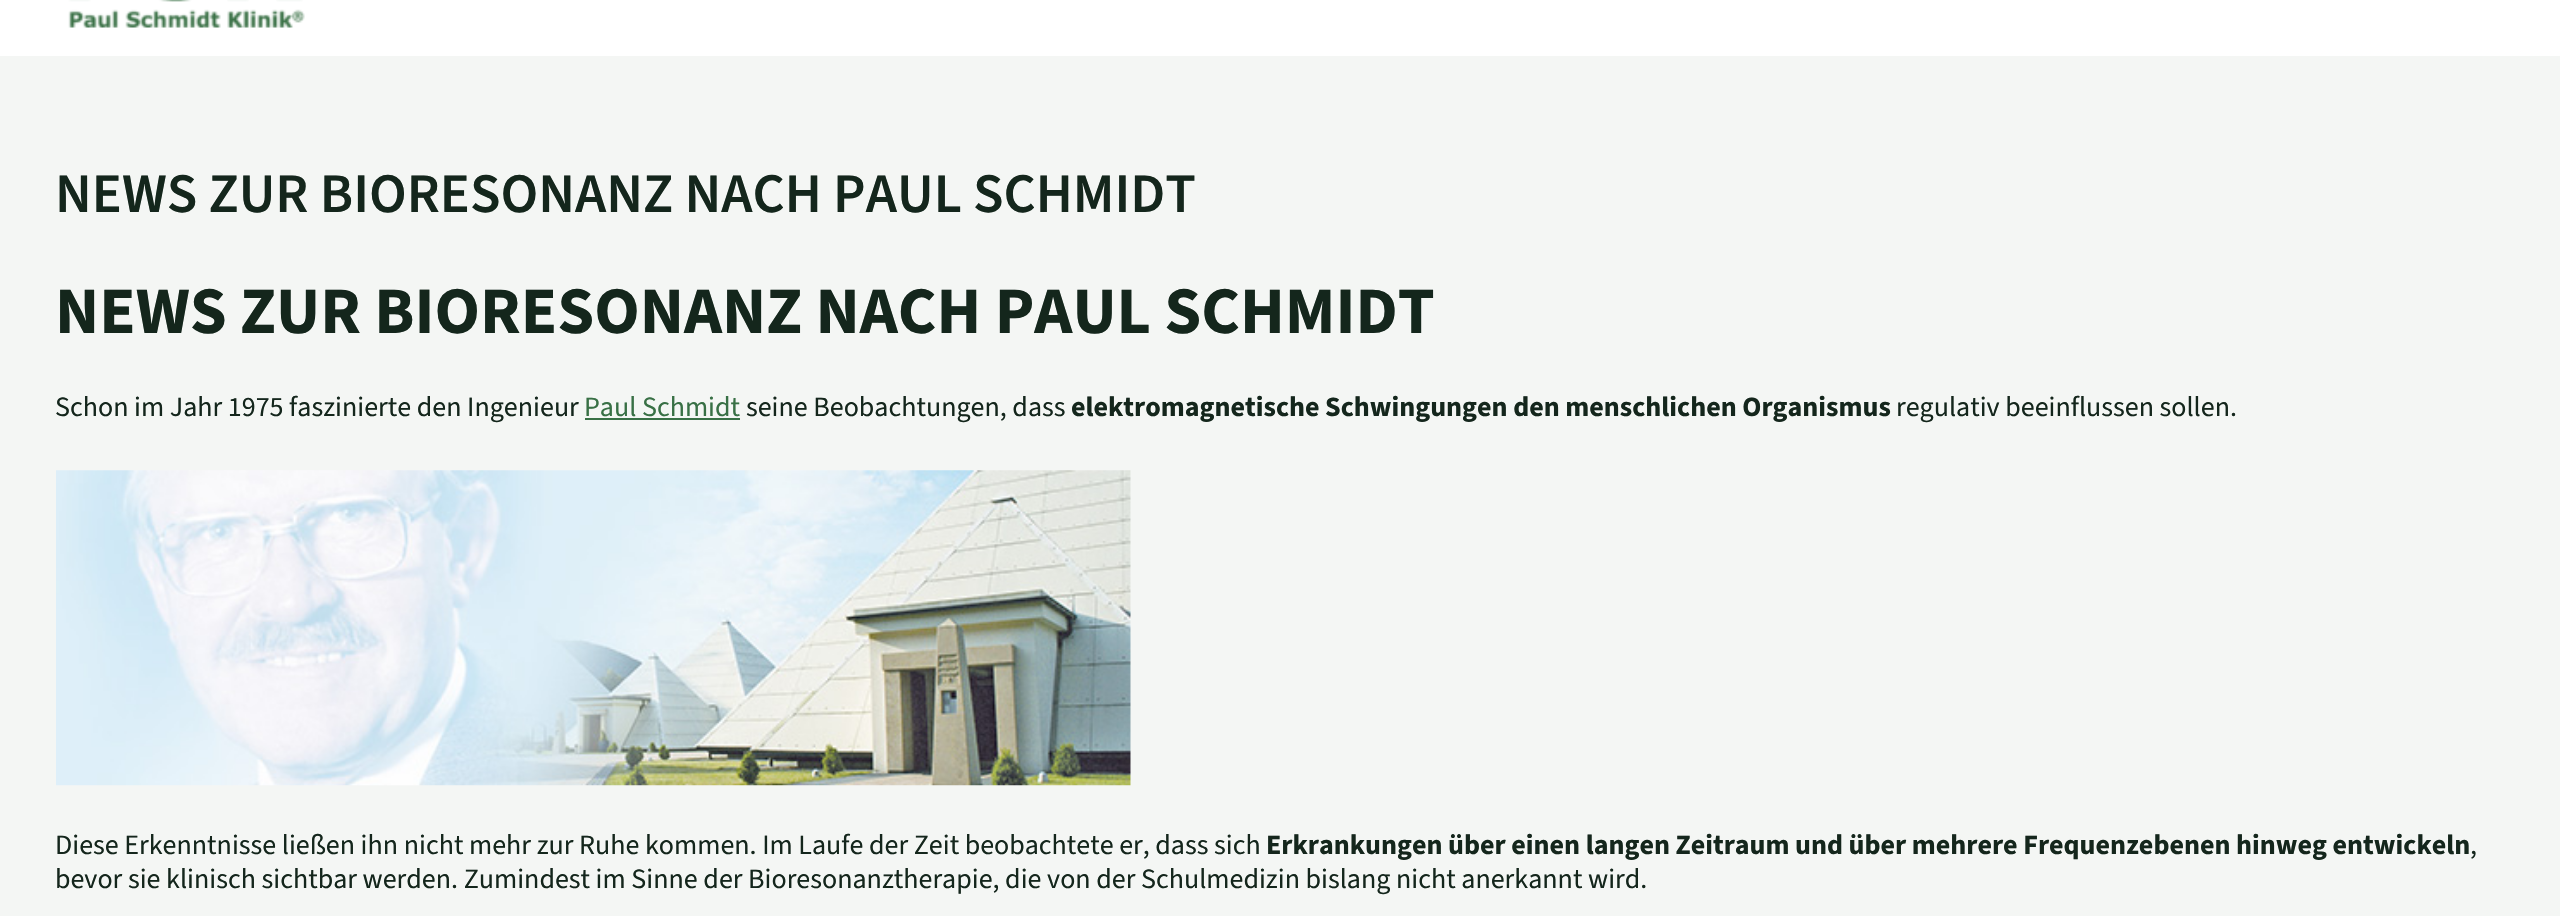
#include "include/core/SkBlurTypes.h"
#include "include/core/SkCanvas.h"
#include "include/core/SkData.h"
#include "include/core/SkFont.h"
#include "include/core/SkFontMgr.h"
#include "include/core/SkImage.h"
#include "include/core/SkMaskFilter.h"
#include "include/core/SkPaint.h"
#include "include/core/SkPathBuilder.h"
#include "include/core/SkTextBlob.h"
#include "include/effects/SkDashPathEffect.h"
#include "include/effects/SkGradientShader.h"
#include "include/utils/SkParsePath.h"

extern sk_sp<SkFontMgr> fontMgr;

void draw(SkCanvas* canvas) {
    SkPaint p;
    p.setAntiAlias(true);
    auto font = [&](const char* family, int weight, float size, bool italic = false) {
        SkFontStyle style(weight, SkFontStyle::kNormal_Width,
            italic ? SkFontStyle::kItalic_Slant : SkFontStyle::kUpright_Slant);
        SkFont result(fontMgr->matchFamilyStyle(family, style), size);
        result.setSubpixel(true);
        return result;
    };
    auto drawPhoto = [&](const char* path, float l, float t, float r, float b) {
        auto image = SkImages::DeferredFromEncodedData(SkData::MakeFromFileName(path));
        canvas->drawImageRect(image, SkRect::MakeLTRB(l, t, r, b), SkSamplingOptions());
    };
    canvas->clear(0xFFF4F6F4);
    p.setColor(0xFFFFFFFF);
    canvas->drawRect(SkRect::MakeLTRB(0, 0, 2560, 56), p);
    drawPhoto("media/1.png", 68, 0, 305, 28);
    auto font1 = font("Source Sans 3", 600, 56);
    p.setColor(0xFF14261C);
    canvas->drawString("NEWS ZUR BIORESONANZ NACH PAUL SCHMIDT", 55, 212, font1, p);
    auto font2 = font("Source Sans 3", 700, 66.5f);
    canvas->drawString("NEWS ZUR BIORESONANZ NACH PAUL SCHMIDT", 55, 333, font2, p);
    auto font3 = font("Source Sans 3", 400, 28);
    canvas->drawString("Schon im Jahr 1975 faszinierte den Ingenieur", 55, 416, font3, p);
    p.setColor(0xFF387045);
    canvas->drawString("Paul Schmidt", 584, 416, font3, p);
    canvas->drawRect(SkRect::MakeLTRB(585, 418, 740, 420), p);
    p.setColor(0xFF14261C);
    canvas->drawString("seine Beobachtungen, dass", 746, 416, font3, p);
    auto font4 = font("Source Sans 3", 700, 28);
    canvas->drawString("elektromagnetische Schwingungen den menschlichen Organismus", 1071, 416, font4, p);
    canvas->drawString("regulativ beeinflussen sollen.", 1896, 416, font3, p);
    drawPhoto("media/2.png", 56, 470, 1131, 786);
    canvas->drawString("Diese Erkenntnisse ließen ihn nicht mehr zur Ruhe kommen. Im Laufe der Zeit beobachtete er, dass sich", 55, 854, font3, p);
    canvas->drawString("Erkrankungen über einen langen Zeitraum und über mehrere Frequenzebenen hinweg entwickeln", 1266, 854, font4, p);
    canvas->drawString(",", 2470, 854, font3, p);
    canvas->drawString("bevor sie klinisch sichtbar werden. Zumindest im Sinne der Bioresonanztherapie, die von der Schulmedizin bislang nicht anerkannt wird.", 55, 888, font3, p);
}
